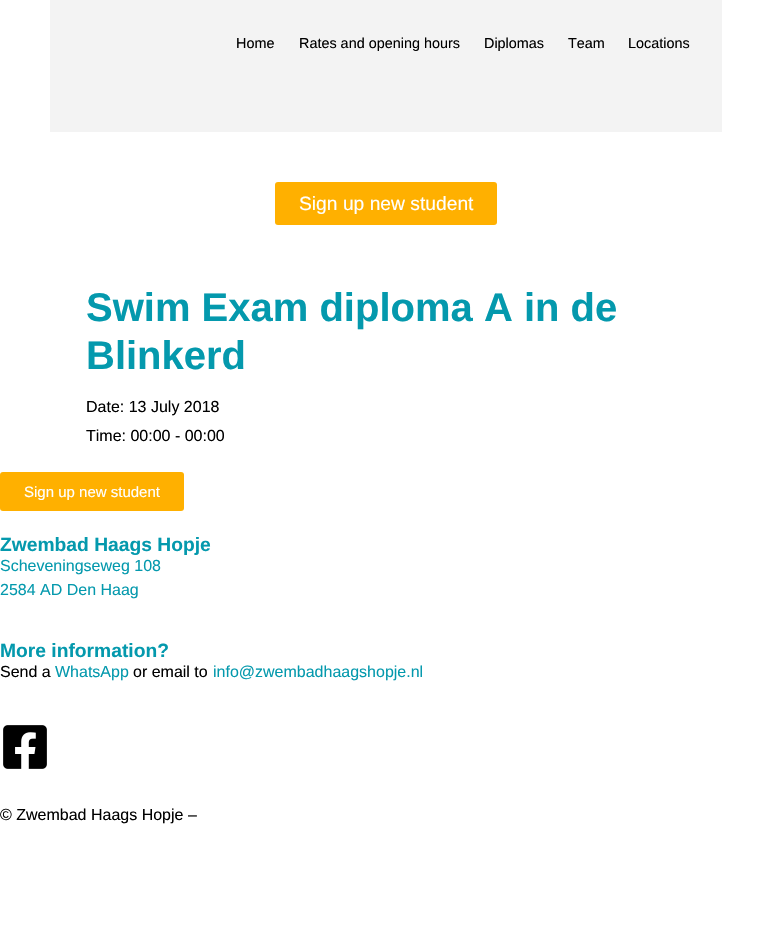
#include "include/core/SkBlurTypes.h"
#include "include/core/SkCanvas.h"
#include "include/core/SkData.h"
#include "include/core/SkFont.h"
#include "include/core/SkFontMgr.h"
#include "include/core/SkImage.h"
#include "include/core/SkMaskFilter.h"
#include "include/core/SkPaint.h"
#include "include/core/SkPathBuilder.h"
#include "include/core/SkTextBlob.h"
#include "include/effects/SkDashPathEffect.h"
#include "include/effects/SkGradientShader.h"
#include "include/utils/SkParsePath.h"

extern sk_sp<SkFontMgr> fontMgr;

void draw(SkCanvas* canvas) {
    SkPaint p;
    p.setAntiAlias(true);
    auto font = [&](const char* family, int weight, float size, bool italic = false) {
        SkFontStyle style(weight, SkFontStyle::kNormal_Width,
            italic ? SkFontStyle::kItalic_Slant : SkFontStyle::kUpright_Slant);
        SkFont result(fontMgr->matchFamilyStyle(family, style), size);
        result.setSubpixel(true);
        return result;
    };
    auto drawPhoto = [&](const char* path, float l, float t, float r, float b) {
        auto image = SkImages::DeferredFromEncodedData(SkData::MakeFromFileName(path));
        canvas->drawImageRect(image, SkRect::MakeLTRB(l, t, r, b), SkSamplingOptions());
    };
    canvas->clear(0xFFFFFFFF);
    p.setColor(0xFFF3F3F3);
    canvas->drawRect(SkRect::MakeLTRB(50, 0, 722, 132), p);
    auto font1 = font("Liberation Sans", 400, 14.4f);
    p.setColor(0xFF000000);
    {
        const struct { const char* s; float x, y; } items[] = {
            {"Home", 236, 48},
            {"Rates and opening hours", 299, 48},
            {"Diplomas", 484, 48},
            {"Team", 568, 48},
            {"Locations", 628, 48},
        };
        for (auto [s, x, y] : items) {
            canvas->drawString(s, x, y, font1, p);
        }
    }
    p.setColor(0xFFFFB000);
    canvas->drawRoundRect(SkRect::MakeLTRB(275, 182, 497, 225), 3, 3, p);
    auto font2 = font("Liberation Sans", 400, 19.25f);
    p.setColor(0xFFFFFFFF);
    canvas->drawString("Sign up new student", 299, 210, font2, p);
    auto font3 = font("Liberation Sans", 700, 40);
    p.setColor(0xFF0499AD);
    canvas->drawString("Swim Exam diploma A in de", 86, 321, font3, p);
    canvas->drawString("Blinkerd", 86, 369, font3, p);
    auto font4 = font("Liberation Sans", 400, 16);
    p.setColor(0xFF000000);
    canvas->drawString("Date: 13 July 2018", 86, 412, font4, p);
    canvas->drawString("Time: 00:00 - 00:00", 86, 441, font4, p);
    p.setColor(0xFFFFB000);
    canvas->drawRoundRect(SkRect::MakeLTRB(0, 472, 184, 511), 3, 3, p);
    auto font5 = font("Liberation Sans", 400, 15);
    p.setColor(0xFFFFFFFF);
    canvas->drawString("Sign up new student", 24, 497, font5, p);
    auto font6 = font("Liberation Sans", 700, 19.25f);
    p.setColor(0xFF0499AD);
    canvas->drawString("Zwembad Haags Hopje", 0, 551, font6, p);
    canvas->drawString("Scheveningseweg 108", 0, 571, font4, p);
    canvas->drawString("2584 AD Den Haag", 0, 595, font4, p);
    canvas->drawString("More information?", 0, 657, font6, p);
    p.setColor(0xFF000000);
    canvas->drawString("Send a", 0, 677, font4, p);
    p.setColor(0xFF0499AD);
    canvas->drawString("WhatsApp", 55, 677, font4, p);
    p.setColor(0xFF000000);
    canvas->drawString("or email to", 133, 677, font4, p);
    p.setColor(0xFF0499AD);
    canvas->drawString("info@zwembadhaagshopje.nl", 213, 677, font4, p);
    drawPhoto("media/1.png", 3, 725, 47, 769);
    p.setColor(0xFF000000);
    canvas->drawString("© Zwembad Haags Hopje –", 0, 820, font4, p);
}
